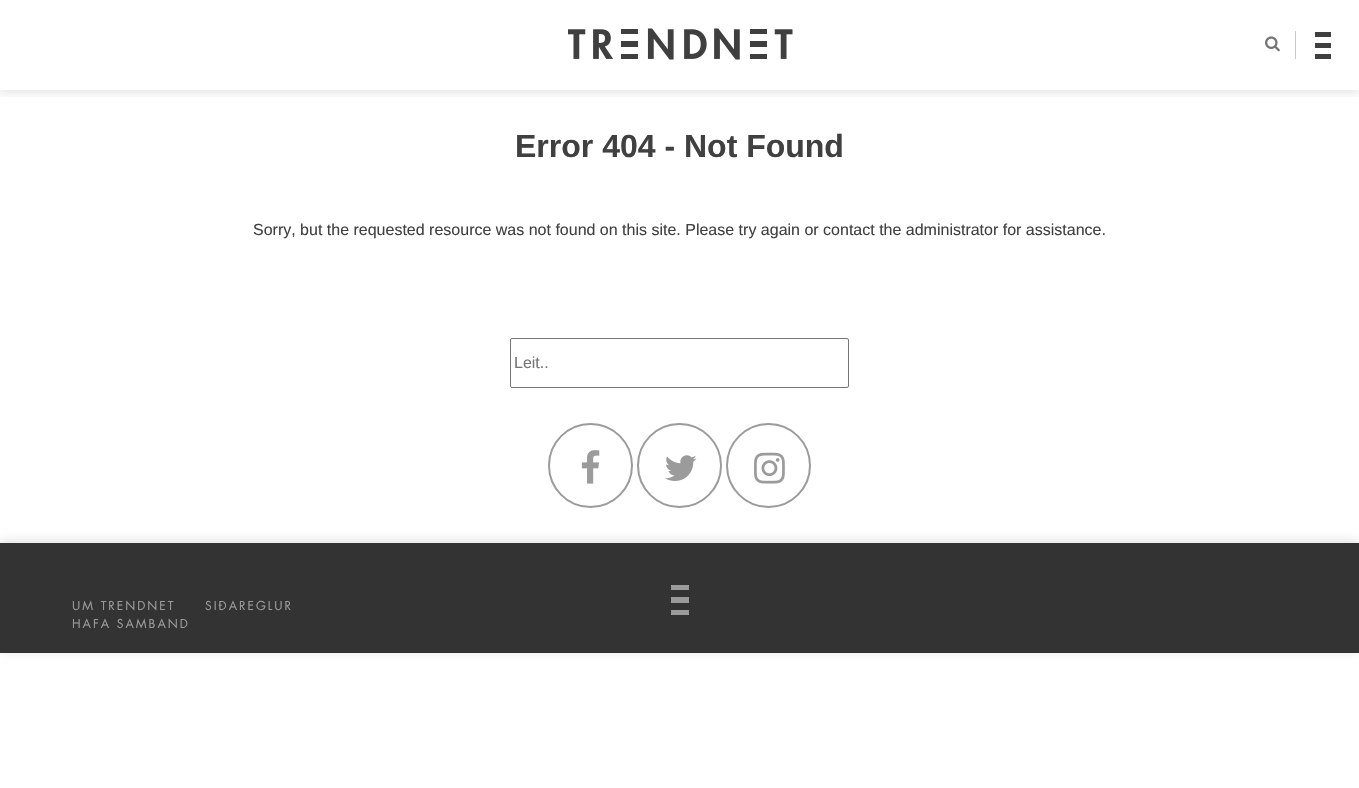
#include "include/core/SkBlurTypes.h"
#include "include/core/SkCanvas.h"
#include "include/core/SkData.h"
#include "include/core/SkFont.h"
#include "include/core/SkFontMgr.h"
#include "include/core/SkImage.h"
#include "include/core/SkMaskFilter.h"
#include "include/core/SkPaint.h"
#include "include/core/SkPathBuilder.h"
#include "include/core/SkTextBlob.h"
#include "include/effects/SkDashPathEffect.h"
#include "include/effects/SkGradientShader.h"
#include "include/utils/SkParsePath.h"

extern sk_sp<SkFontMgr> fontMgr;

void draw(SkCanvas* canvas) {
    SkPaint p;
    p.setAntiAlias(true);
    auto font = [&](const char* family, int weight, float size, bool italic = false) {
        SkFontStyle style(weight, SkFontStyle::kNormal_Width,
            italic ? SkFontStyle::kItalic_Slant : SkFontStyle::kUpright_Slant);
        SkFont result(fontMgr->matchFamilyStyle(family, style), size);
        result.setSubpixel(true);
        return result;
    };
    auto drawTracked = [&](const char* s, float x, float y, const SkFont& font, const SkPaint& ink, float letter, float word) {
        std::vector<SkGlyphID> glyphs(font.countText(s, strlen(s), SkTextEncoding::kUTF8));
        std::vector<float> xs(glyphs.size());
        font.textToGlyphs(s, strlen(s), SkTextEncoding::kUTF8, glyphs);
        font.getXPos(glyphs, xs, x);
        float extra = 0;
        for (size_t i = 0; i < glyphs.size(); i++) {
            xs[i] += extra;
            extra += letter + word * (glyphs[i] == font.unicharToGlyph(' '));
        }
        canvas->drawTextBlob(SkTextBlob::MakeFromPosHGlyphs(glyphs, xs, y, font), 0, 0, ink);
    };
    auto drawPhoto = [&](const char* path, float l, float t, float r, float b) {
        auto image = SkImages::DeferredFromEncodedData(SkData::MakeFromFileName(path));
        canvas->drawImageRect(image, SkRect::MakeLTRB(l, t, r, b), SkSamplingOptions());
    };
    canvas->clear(0xFFFFFFFF);
    canvas->save();
    canvas->clipRect(SkRect::MakeLTRB(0, 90, 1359, 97));
    p.setColor(0x1F000000);
    p.setMaskFilter(SkMaskFilter::MakeBlur(kNormal_SkBlurStyle, 5));
    canvas->drawRect(SkRect::MakeLTRB(0, 2, 1359, 92), p);
    p.setMaskFilter(nullptr);
    canvas->restore();
    drawPhoto("media/1.png", 568, 28, 793, 60);
    drawPhoto("media/2.png", 1265, 36, 1280, 52);
    {
        const struct { float l, t, r, b; SkColor color; } items[] = {
            {1295, 31, 1296, 59, 0xFFC9C9C9},
            {1315, 32, 1331, 37, 0xFF3F3F3F},
            {1315, 43, 1331, 48, 0xFF3F3F3F},
            {1315, 54, 1331, 59, 0xFF3F3F3F},
        };
        for (auto [l, t, r, b, color] : items) {
            p.setColor(color);
            canvas->drawRect(SkRect::MakeLTRB(l, t, r, b), p);
        }
    }
    auto font1 = font("Liberation Sans", 700, 32);
    p.setColor(0xFF404040);
    canvas->drawString("Error 404 - Not Found", 515, 157, font1, p);
    auto font2 = font("Liberation Sans", 400, 16);
    canvas->drawString("Sorry, but the requested resource was not found on this site. Please try again or contact the administrator for assistance.", 253, 235, font2, p);
    p.setStyle(SkPaint::kStroke_Style);
    p.setStrokeWidth(1);
    p.setColor(0xFF767676);
    canvas->drawRoundRect(SkRect::MakeLTRB(510.5f, 338.5f, 848.5f, 387.5f), 1.5f, 1.5f, p);
    p.setStyle(SkPaint::kFill_Style);
    p.setColor(0xFF757575);
    canvas->drawString("Leit..", 514, 368, font2, p);
    p.setStyle(SkPaint::kStroke_Style);
    p.setStrokeWidth(2);
    p.setColor(0xFF9B9B9B);
    canvas->drawCircle(590.5f, 465.5f, 41.5f, p);
    drawPhoto("media/3.png", 581, 450, 600, 484);
    canvas->drawCircle(679.5f, 465.5f, 41.5f, p);
    drawPhoto("media/4.png", 665, 455, 697, 481);
    canvas->drawCircle(768.5f, 465.5f, 41.5f, p);
    drawPhoto("media/5.png", 754, 452, 785, 484);
    p.setStyle(SkPaint::kFill_Style);
    p.setColor(0x1F000000);
    p.setMaskFilter(SkMaskFilter::MakeBlur(kNormal_SkBlurStyle, 5));
    canvas->drawRect(SkRect::MakeLTRB(0, 541, 1359, 651), p);
    p.setMaskFilter(nullptr);
    p.setColor(0xFF333333);
    canvas->drawRect(SkRect::MakeLTRB(0, 543, 1359, 653), p);
    auto font3 = font("Futura", 400, 12);
    p.setColor(0xFF9B9B9B);
    {
        const struct { const char* s; float x, y; } items[] = {
            {"UM TRENDNET", 72, 610},
            {"SIÐAREGLUR", 205, 610},
            {"HAFA SAMBAND", 72, 628},
        };
        for (auto [s, x, y] : items) {
            drawTracked(s, x, y, font3, p, 2, 0);
        }
    }
    {
        const struct { float l, t, r, b; SkColor color; } items[] = {
            {671, 585, 689, 590, 0xFF9B9B9B},
            {671, 597, 689, 603, 0xFF9B9B9B},
            {671, 610, 689, 615, 0xFF9B9B9B},
        };
        for (auto [l, t, r, b, color] : items) {
            p.setColor(color);
            canvas->drawRect(SkRect::MakeLTRB(l, t, r, b), p);
        }
    }
}
